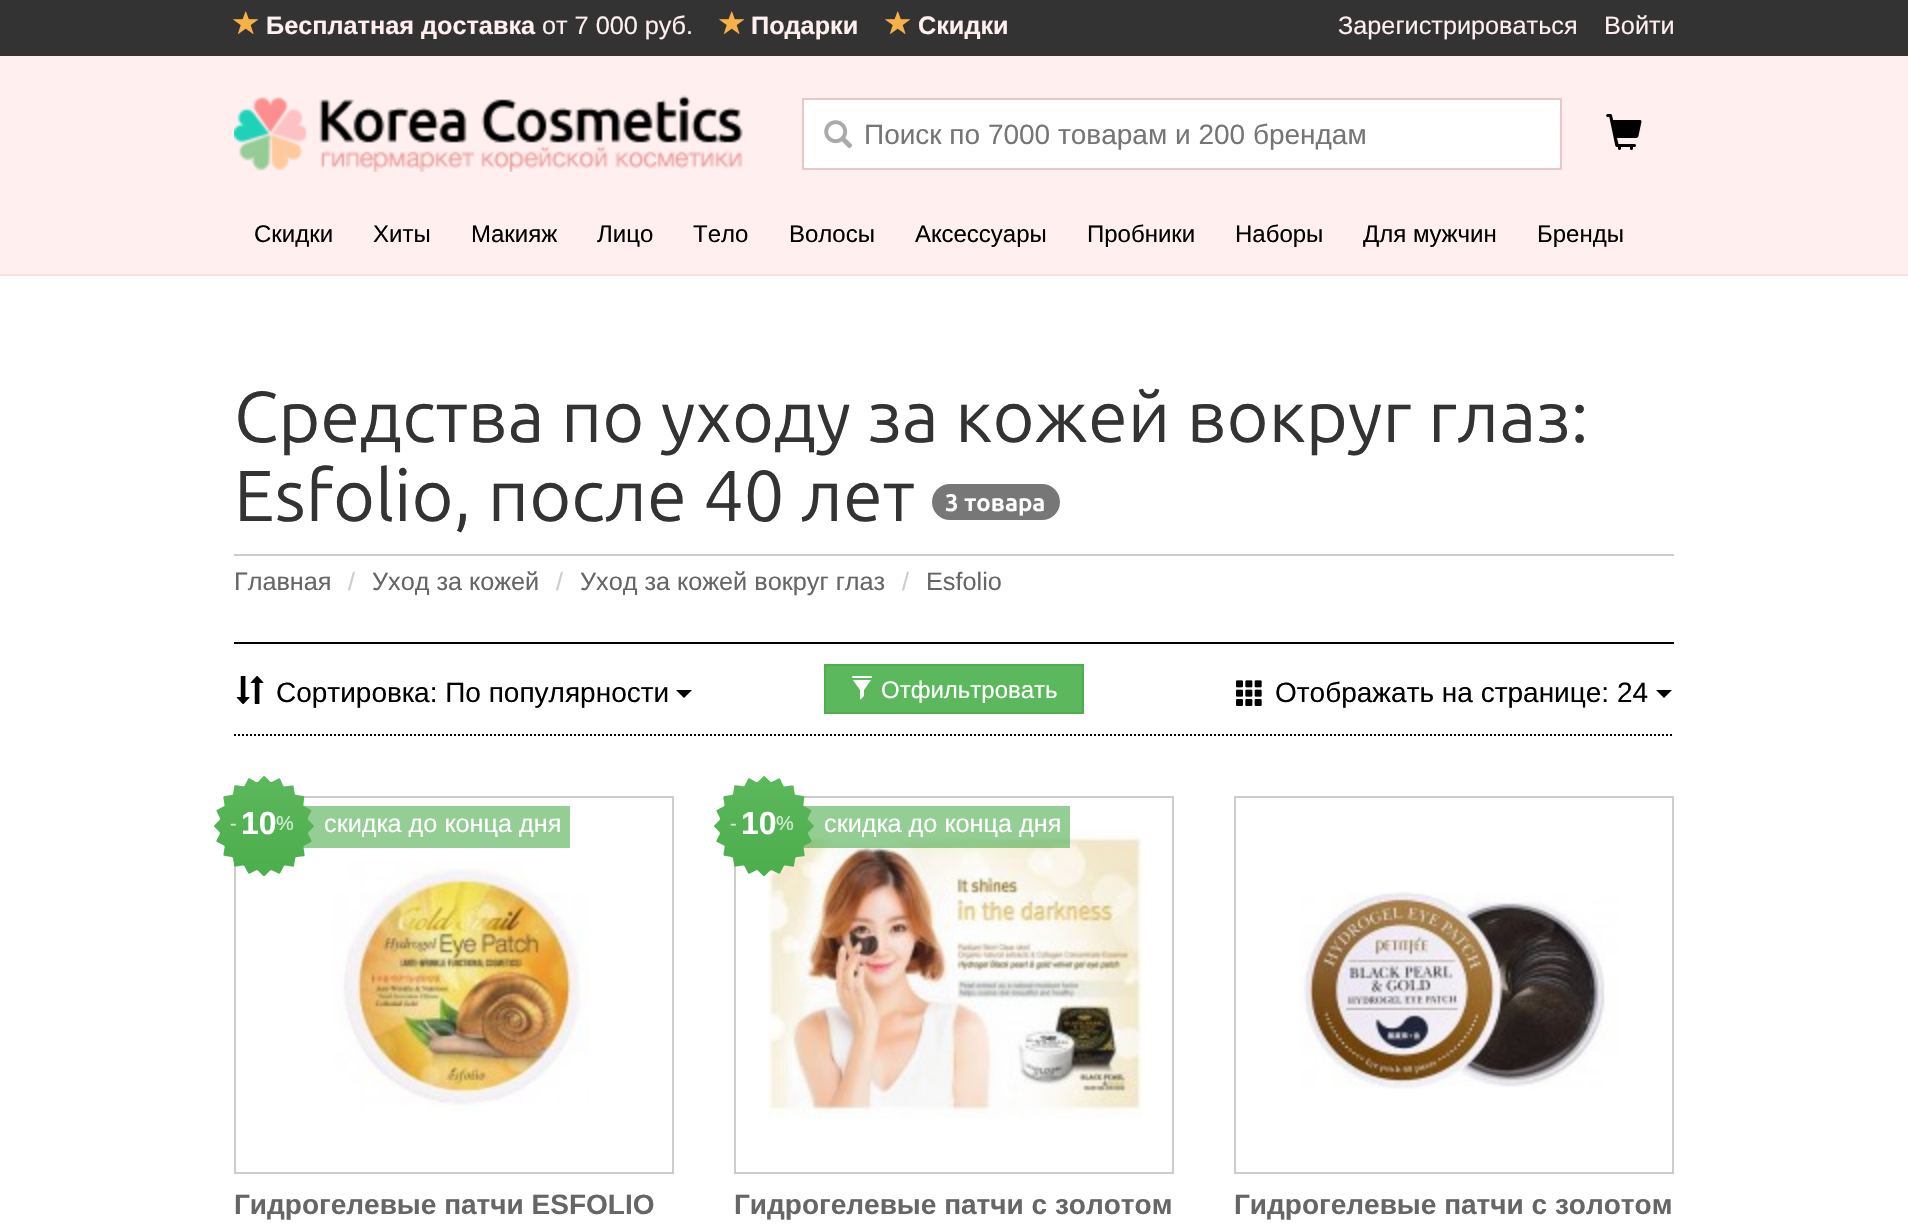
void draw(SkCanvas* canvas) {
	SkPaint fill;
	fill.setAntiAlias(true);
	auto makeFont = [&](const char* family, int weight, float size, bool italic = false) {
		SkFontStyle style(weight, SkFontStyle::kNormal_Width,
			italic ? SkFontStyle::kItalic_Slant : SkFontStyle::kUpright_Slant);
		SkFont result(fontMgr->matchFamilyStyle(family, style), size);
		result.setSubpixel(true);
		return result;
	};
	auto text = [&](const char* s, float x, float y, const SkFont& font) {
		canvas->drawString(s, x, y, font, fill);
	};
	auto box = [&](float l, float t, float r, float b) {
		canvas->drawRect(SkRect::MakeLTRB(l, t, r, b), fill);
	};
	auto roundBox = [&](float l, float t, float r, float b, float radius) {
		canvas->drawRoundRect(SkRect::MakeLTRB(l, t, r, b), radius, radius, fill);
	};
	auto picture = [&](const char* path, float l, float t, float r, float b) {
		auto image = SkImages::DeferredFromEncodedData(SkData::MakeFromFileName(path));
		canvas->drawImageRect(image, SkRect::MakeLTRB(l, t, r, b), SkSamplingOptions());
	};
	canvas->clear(0xFFFFFFFF);
	fill.setColor(0xFF333333);
	box(0, 0, 1908, 56);
	picture("image0.png", 233, 11, 259, 34);
	picture("image0.png", 719, 11, 745, 34);
	picture("image0.png", 885, 11, 911, 34);
	fill.setColor(0xFFFFEFEF);
	box(0, 56, 1908, 274);
	picture("image1.png", 234, 95, 743, 172);
	fill.setColor(0xFFFFFFFF);
	canvas->drawRect(SkRect::MakeLTRB(803, 99, 1561, 169), fill);
	fill.setStyle(SkPaint::kStroke_Style);
	fill.setStrokeWidth(2);
	fill.setColor(0xFFEAC7C7);
	canvas->drawRect(SkRect::MakeLTRB(803, 99, 1561, 169), fill);
	picture("image2.png", 824, 120, 853, 149);
	picture("image3.png", 1606, 114, 1642, 150);
	fill.setStyle(SkPaint::kFill_Style);
	fill.setColor(0xFFF6DFDF);
	box(0, 274, 1908, 276);
	fill.setColor(0xFF777777);
	roundBox(932, 484, 1060, 520, 18);
	fill.setColor(0xFFCCCCCC);
	box(234, 554, 1674, 556);
	fill.setColor(0xFF000000);
	box(234, 642, 1674, 644);
	fill.setStyle(SkPaint::kStroke_Style);
	fill.setPathEffect(SkDashPathEffect::Make({{2, 2}}, 0));
	canvas->drawPath(SkPathBuilder().moveTo(234, 735).lineTo(1674, 735).detach(), fill);
	fill.setPathEffect(nullptr);
	picture("image4.png", 236, 676, 264, 704);
	fill.setStyle(SkPaint::kFill_Style);
	canvas->drawPath(SkPathBuilder().moveTo(676, 690).lineTo(692, 690).lineTo(684, 698).close().detach(), fill);
	fill.setColor(0xFF5CB85C);
	canvas->drawRect(SkRect::MakeLTRB(825, 665, 1083, 713), fill);
	fill.setStyle(SkPaint::kStroke_Style);
	fill.setColor(0xFF4CAE4C);
	canvas->drawRect(SkRect::MakeLTRB(825, 665, 1083, 713), fill);
	picture("image5.png", 852, 676, 872, 700);
	picture("image6.png", 1236, 680, 1262, 706);
	fill.setStyle(SkPaint::kFill_Style);
	fill.setColor(0xFF000000);
	canvas->drawPath(SkPathBuilder().moveTo(1656, 690).lineTo(1672, 690).lineTo(1664, 698).close().detach(), fill);
	fill.setStyle(SkPaint::kStroke_Style);
	fill.setColor(0xFFCCCCCC);
	canvas->drawRect(SkRect::MakeLTRB(235, 797, 673, 1173), fill);
	picture("image7.png", 332, 861, 589, 1113);
	fill.setStyle(SkPaint::kFill_Style);
	fill.setColor(0xFF94CE94);
	box(303, 806, 570, 848);
	picture("image8.png", 214, 776, 314, 876);
	fill.setStyle(SkPaint::kStroke_Style);
	fill.setColor(0xFFCCCCCC);
	canvas->drawRect(SkRect::MakeLTRB(735, 797, 1173, 1173), fill);
	picture("image9.png", 768, 830, 1142, 1119);
	fill.setStyle(SkPaint::kFill_Style);
	fill.setColor(0x994CAE4C);
	box(803, 806, 1070, 848);
	picture("image10.png", 714, 776, 814, 876);
	fill.setStyle(SkPaint::kStroke_Style);
	fill.setColor(0xFFCCCCCC);
	canvas->drawRect(SkRect::MakeLTRB(1235, 797, 1673, 1173), fill);
	picture("image11.png", 1300, 891, 1619, 1089);
	auto font1 = makeFont("Liberation Sans", 700, 25.25f);
	fill.setStyle(SkPaint::kFill_Style);
	fill.setColor(0xFFFFEFEF);
	text("Бесплатная доставка", 266, 34, font1);
	auto font2 = makeFont("Liberation Sans", 400, 25.25f);
	text("от 7 000 руб.", 542, 34, font2);
	text("Подарки", 751, 34, font1);
	text("Скидки", 918, 34, font1);
	text("Зарегистрироваться", 1338, 34, font2);
	text("Войти", 1604, 34, font2);
	auto font3 = makeFont("Liberation Sans", 400, 28);
	fill.setColor(0xFF757575);
	text("Поиск по 7000 товарам и 200 брендам", 864, 144, font3);
	auto font4 = makeFont("Liberation Sans", 400, 24);
	fill.setColor(0xFF000000);
	text("Скидки", 254, 242, font4);
	text("Хиты", 373, 242, font4);
	text("Макияж", 471, 242, font4);
	text("Лицо", 597, 242, font4);
	text("Тело", 693, 242, font4);
	text("Волосы", 789, 242, font4);
	text("Аксессуары", 915, 242, font4);
	text("Пробники", 1087, 242, font4);
	text("Наборы", 1235, 242, font4);
	text("Для мужчин", 1363, 242, font4);
	text("Бренды", 1537, 242, font4);
	auto font5 = makeFont("Ubuntu", 400, 72);
	fill.setColor(0xFF333333);
	text("Средства по уходу за кожей вокруг глаз:", 234, 442, font5);
	text("Esfolio, после 40 лет", 234, 521, font5);
	auto font6 = makeFont("Ubuntu", 700, 24);
	fill.setColor(0xFFFFFFFF);
	text("3 товара", 945, 511, font6);
	fill.setColor(0xFF666666);
	text("Главная", 234, 590, font2);
	fill.setColor(0xFFCCCCCC);
	text("/", 348, 590, font2);
	fill.setColor(0xFF666666);
	text("Уход за кожей", 372, 590, font2);
	fill.setColor(0xFFCCCCCC);
	text("/", 556, 590, font2);
	fill.setColor(0xFF666666);
	text("Уход за кожей вокруг глаз", 580, 590, font2);
	fill.setColor(0xFFCCCCCC);
	text("/", 902, 590, font2);
	fill.setColor(0xFF666666);
	text("Esfolio", 926, 590, font2);
	fill.setColor(0xFF000000);
	text("Сортировка: По популярности", 276, 702, font3);
	fill.setColor(0xFFFFFFFF);
	text("Отфильтровать", 881, 698, font4);
	fill.setColor(0xFF000000);
	text("Отображать на странице: 24", 1275, 702, font3);
	auto font7 = makeFont("Liberation Sans", 400, 20);
	fill.setColor(0xFFD4ECD4);
	text("-", 230, 830, font7);
	auto font8 = makeFont("Liberation Sans", 700, 32);
	fill.setColor(0xFFFFFFFF);
	text("10", 241, 834, font8);
	fill.setColor(0xFFD4ECD4);
	text("%", 276, 830, font7);
	fill.setColor(0xFFFFFFFF);
	text("скидка до конца дня", 324, 832, font2);
	auto font9 = makeFont("Liberation Sans", 700, 28);
	fill.setColor(0xFF666666);
	text("Гидрогелевые патчи ESFOLIO", 234, 1214, font9);
	fill.setColor(0xFFD4ECD4);
	text("-", 730, 830, font7);
	fill.setColor(0xFFFFFFFF);
	text("10", 741, 834, font8);
	fill.setColor(0xFFD4ECD4);
	text("%", 776, 830, font7);
	fill.setColor(0xFFFFFFFF);
	text("скидка до конца дня", 824, 832, font2);
	fill.setColor(0xFF666666);
	text("Гидрогелевые патчи с золотом", 734, 1214, font9);
	text("Гидрогелевые патчи с золотом", 1234, 1214, font9);
}
